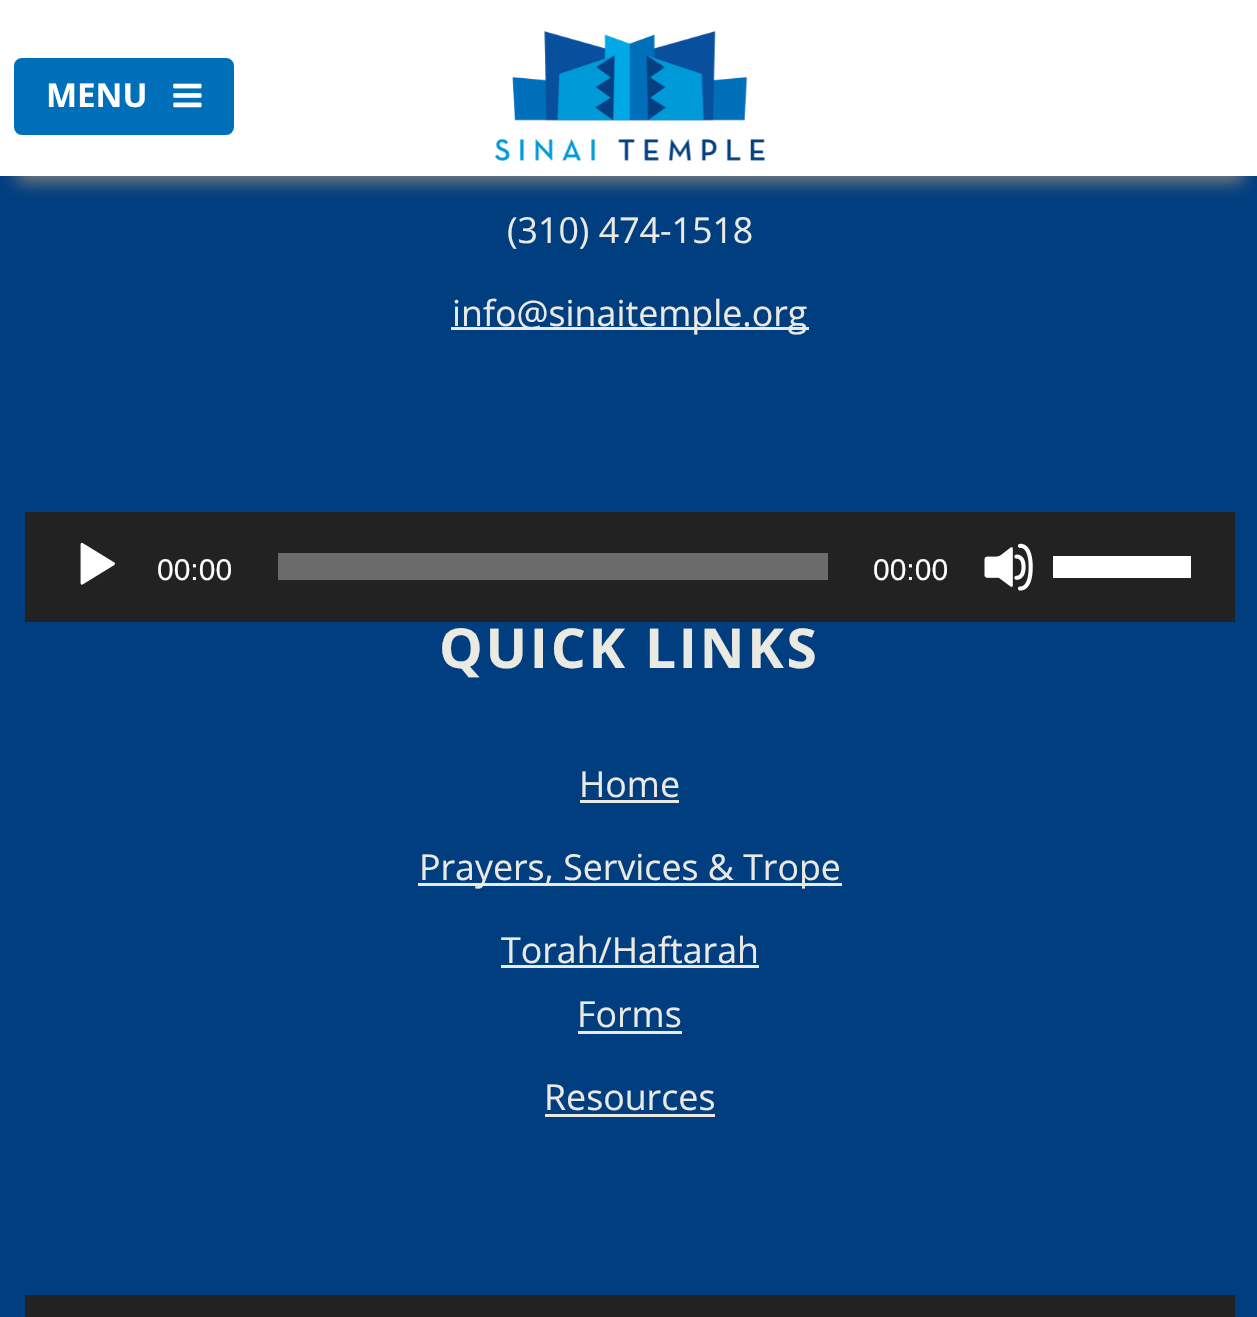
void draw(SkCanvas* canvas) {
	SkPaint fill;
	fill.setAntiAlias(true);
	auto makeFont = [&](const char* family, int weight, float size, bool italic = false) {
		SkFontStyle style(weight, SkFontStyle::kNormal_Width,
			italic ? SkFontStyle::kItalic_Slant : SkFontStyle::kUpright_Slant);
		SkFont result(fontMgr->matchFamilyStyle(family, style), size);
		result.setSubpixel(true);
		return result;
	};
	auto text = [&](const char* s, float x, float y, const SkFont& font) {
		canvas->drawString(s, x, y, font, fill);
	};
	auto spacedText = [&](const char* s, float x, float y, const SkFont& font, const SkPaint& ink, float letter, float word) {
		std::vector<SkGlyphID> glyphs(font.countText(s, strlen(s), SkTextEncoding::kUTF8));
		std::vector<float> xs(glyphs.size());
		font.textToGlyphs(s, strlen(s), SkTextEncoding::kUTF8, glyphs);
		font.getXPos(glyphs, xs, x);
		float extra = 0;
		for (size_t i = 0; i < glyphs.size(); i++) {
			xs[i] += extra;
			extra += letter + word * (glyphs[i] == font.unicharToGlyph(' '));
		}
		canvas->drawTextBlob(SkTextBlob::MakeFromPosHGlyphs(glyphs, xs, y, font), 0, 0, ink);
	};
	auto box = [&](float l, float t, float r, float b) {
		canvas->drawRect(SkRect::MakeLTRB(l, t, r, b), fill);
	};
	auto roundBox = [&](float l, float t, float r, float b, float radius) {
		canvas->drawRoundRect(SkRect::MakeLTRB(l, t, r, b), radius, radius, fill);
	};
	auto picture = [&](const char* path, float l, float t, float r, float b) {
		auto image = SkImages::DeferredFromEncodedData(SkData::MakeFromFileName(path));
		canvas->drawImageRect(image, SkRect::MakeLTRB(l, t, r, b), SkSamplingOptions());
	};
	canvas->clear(0xFF003E80);
	fill.setColor(0xFF7C7C7C);
	fill.setMaskFilter(SkMaskFilter::MakeBlur(kNormal_SkBlurStyle, 8));
	canvas->drawRect(SkRect::MakeLTRB(17, 39, 1243, 182), fill);
	fill.setMaskFilter(nullptr);
	fill.setColor(0xFFFFFFFF);
	box(0, 0, 1257, 176);
	fill.setColor(0xFF006FB9);
	roundBox(14, 58, 234, 135, 8);
	picture("image0.png", 173, 83, 202, 108);
	picture("image1.png", 495, 31, 765, 161);
	fill.setColor(0xFFEBEAE2);
	box(451, 327, 809, 330);
	fill.setColor(0xFF222222);
	box(25, 512, 1235, 622);
	picture("image2.png", 80, 542, 115, 585);
	fill.setColor(0xFF6B6B6B);
	box(278, 553, 828, 580);
	picture("image3.png", 984, 543, 1033, 591);
	fill.setColor(0xFFFFFFFF);
	box(1053, 556, 1191, 578);
	fill.setColor(0xFFEBEAE2);
	box(580, 800, 679, 803);
	box(418, 883, 842, 886);
	box(501, 965, 759, 968);
	box(578, 1031, 682, 1034);
	box(545, 1114, 715, 1117);
	fill.setColor(0xFF222222);
	box(25, 1295, 1235, 1317);
	auto font1 = makeFont("Open Sans", 700, 33);
	fill.setColor(0xFFFFFFFF);
	text("MENU", 46, 107, font1);
	auto font2 = makeFont("Open Sans", 400, 35.75f);
	fill.setColor(0xFFEBEAE2);
	text("(310) 474-1518", 507, 243, font2);
	text("info@sinaitemple.org", 452, 326, font2);
	auto font3 = makeFont("Liberation Sans", 400, 30);
	fill.setColor(0xFFFFFFFF);
	text("00:00", 157, 580, font3);
	text("00:00", 873, 580, font3);
	auto font4 = makeFont("Open Sans", 700, 55);
	fill.setColor(0xFFEBEAE2);
	spacedText("QUICK LINKS", 439, 668, font4, fill, 2.75f, 0);
	text("Home", 579, 797, font2);
	text("Prayers, Services & Trope", 419, 880, font2);
	text("Torah/Haftarah", 501, 963, font2);
	text("Forms", 577, 1027, font2);
	text("Resources", 544, 1110, font2);
}
